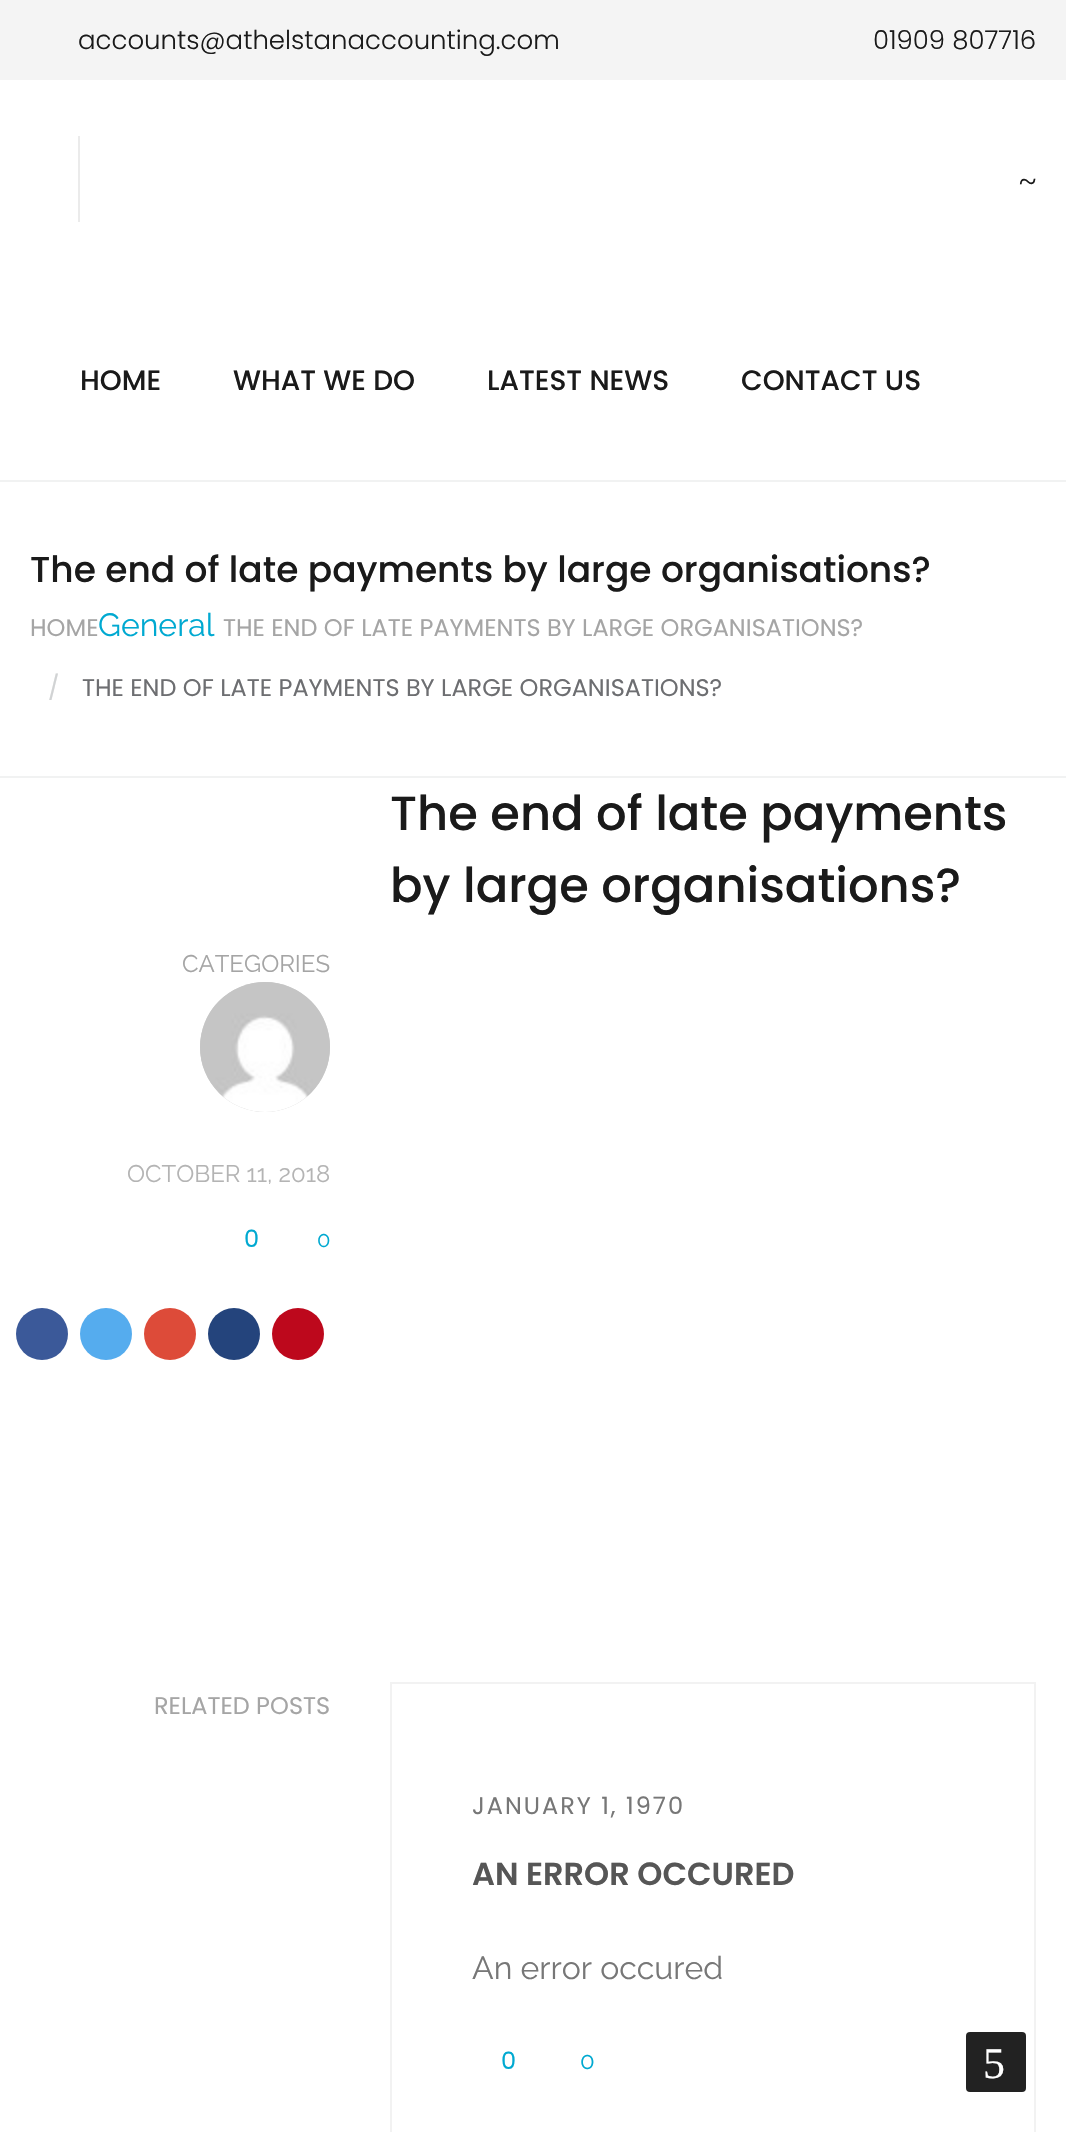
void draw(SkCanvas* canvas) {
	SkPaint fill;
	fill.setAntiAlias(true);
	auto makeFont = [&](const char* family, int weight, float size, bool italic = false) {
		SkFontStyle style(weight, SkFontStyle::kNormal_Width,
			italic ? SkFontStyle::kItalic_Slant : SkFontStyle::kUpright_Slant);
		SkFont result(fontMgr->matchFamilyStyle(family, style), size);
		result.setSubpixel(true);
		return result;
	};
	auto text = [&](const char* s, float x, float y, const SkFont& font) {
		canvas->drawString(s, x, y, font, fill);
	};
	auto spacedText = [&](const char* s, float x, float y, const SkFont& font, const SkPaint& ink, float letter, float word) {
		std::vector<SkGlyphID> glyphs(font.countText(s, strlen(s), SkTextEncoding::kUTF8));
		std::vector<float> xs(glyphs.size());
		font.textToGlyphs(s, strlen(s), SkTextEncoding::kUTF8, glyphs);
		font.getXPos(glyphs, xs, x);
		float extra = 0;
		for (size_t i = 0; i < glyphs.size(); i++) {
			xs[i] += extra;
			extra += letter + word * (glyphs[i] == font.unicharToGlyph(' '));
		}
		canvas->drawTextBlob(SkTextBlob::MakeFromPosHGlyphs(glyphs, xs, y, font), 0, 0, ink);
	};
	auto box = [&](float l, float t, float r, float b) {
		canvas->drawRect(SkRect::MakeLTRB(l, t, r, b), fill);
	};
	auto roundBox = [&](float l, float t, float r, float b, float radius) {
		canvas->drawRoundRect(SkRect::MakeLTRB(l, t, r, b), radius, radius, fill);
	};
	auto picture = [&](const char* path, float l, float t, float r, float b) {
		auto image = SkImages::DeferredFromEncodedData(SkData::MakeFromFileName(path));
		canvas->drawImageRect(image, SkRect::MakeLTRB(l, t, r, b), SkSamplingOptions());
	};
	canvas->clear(0xFFFFFFFF);
	fill.setColor(0xFFF4F4F4);
	box(0, 0, 1066, 80);
	fill.setColor(0xFFF1F2F2);
	box(0, 480, 1066, 482);
	fill.setColor(0xFFEBEBEB);
	box(78, 136, 80, 222);
	fill.setColor(0xFFF1F2F2);
	box(0, 776, 1066, 778);
	fill.setColor(0xFFCCCCCC);
	canvas->drawCircle(265, 1047, 65, fill);
	picture("image0.png", 200, 982, 330, 1112);
	fill.setColor(0xFF3B5999);
	canvas->drawCircle(42, 1334, 26, fill);
	fill.setColor(0xFF55ACEE);
	canvas->drawCircle(106, 1334, 26, fill);
	fill.setColor(0xFFDD4B39);
	canvas->drawCircle(170, 1334, 26, fill);
	fill.setColor(0xFF24447C);
	canvas->drawCircle(234, 1334, 26, fill);
	fill.setColor(0xFFBD081C);
	canvas->drawCircle(298, 1334, 26, fill);
	fill.setStyle(SkPaint::kStroke_Style);
	fill.setStrokeWidth(2);
	fill.setColor(0xFFF2F2F2);
	canvas->drawRect(SkRect::MakeLTRB(391, 1683, 1035, 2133), fill);
	fill.setStyle(SkPaint::kFill_Style);
	fill.setColor(0xFF222222);
	roundBox(966, 2032, 1026, 2092, 4);
	auto font1 = makeFont("Poppins", 300, 26);
	fill.setColor(0xFF1A1A1A);
	text("accounts@athelstanaccounting.com", 78, 49, font1);
	text("01909 807716", 873, 49, font1);
	auto font2 = makeFont("Liberation Serif", 400, 32);
	text("~", 1019, 192, font2);
	auto font3 = makeFont("Poppins", 500, 28);
	text("HOME", 80, 390, font3);
	text("WHAT WE DO", 233, 390, font3);
	text("LATEST NEWS", 487, 390, font3);
	text("CONTACT US", 741, 390, font3);
	auto font4 = makeFont("Poppins", 500, 36);
	text("The end of late payments by large organisations?", 30, 582, font4);
	auto font5 = makeFont("Poppins", 400, 24);
	fill.setColor(0xFFA5A5A5);
	text("HOME", 30, 636, font5);
	auto font6 = makeFont("Raleway", 400, 32);
	fill.setColor(0xFF00A9D1);
	text("General", 98, 636, font6);
	fill.setColor(0xFFA5A5A5);
	text("THE END OF LATE PAYMENTS BY LARGE ORGANISATIONS?", 223, 636, font5);
	fill.setColor(0xFFD1D3D4);
	text("/", 48, 696, font5);
	fill.setColor(0xFF6D6E71);
	text("THE END OF LATE PAYMENTS BY LARGE ORGANISATIONS?", 82, 696, font5);
	auto font7 = makeFont("Poppins", 500, 48);
	fill.setColor(0xFF1A1A1A);
	text("The end of late payments", 390, 830, font7);
	text("by large organisations?", 390, 902, font7);
	auto font8 = makeFont("Raleway", 400, 24);
	fill.setColor(0xFFA5A5A5);
	text("CATEGORIES", 182, 972, font8);
	fill.setColor(0xFFB4B4B4);
	text("OCTOBER 11, 2018", 127, 1182, font8);
	fill.setColor(0xFF00A9D1);
	text("0", 244, 1247, font5);
	auto font9 = makeFont("Raleway", 400, 22);
	text("0", 317, 1247, font9);
	fill.setColor(0xFFA5A5A5);
	text("RELATED POSTS", 154, 1714, font5);
	fill.setColor(0xFF777777);
	spacedText("JANUARY 1, 1970", 472, 1814, font5, fill, 2, 0);
	auto font10 = makeFont("Poppins", 600, 32);
	fill.setColor(0xFF565656);
	text("AN ERROR OCCURED", 472, 1885, font10);
	fill.setColor(0xFF777777);
	text("An error occured", 472, 1979, font6);
	fill.setColor(0xFF00A9D1);
	text("0", 501, 2069, font5);
	text("0", 580, 2069, font8);
	auto font11 = makeFont("Liberation Serif", 400, 44);
	fill.setColor(0xFFFFFFFF);
	text("5", 983, 2078, font11);
}
